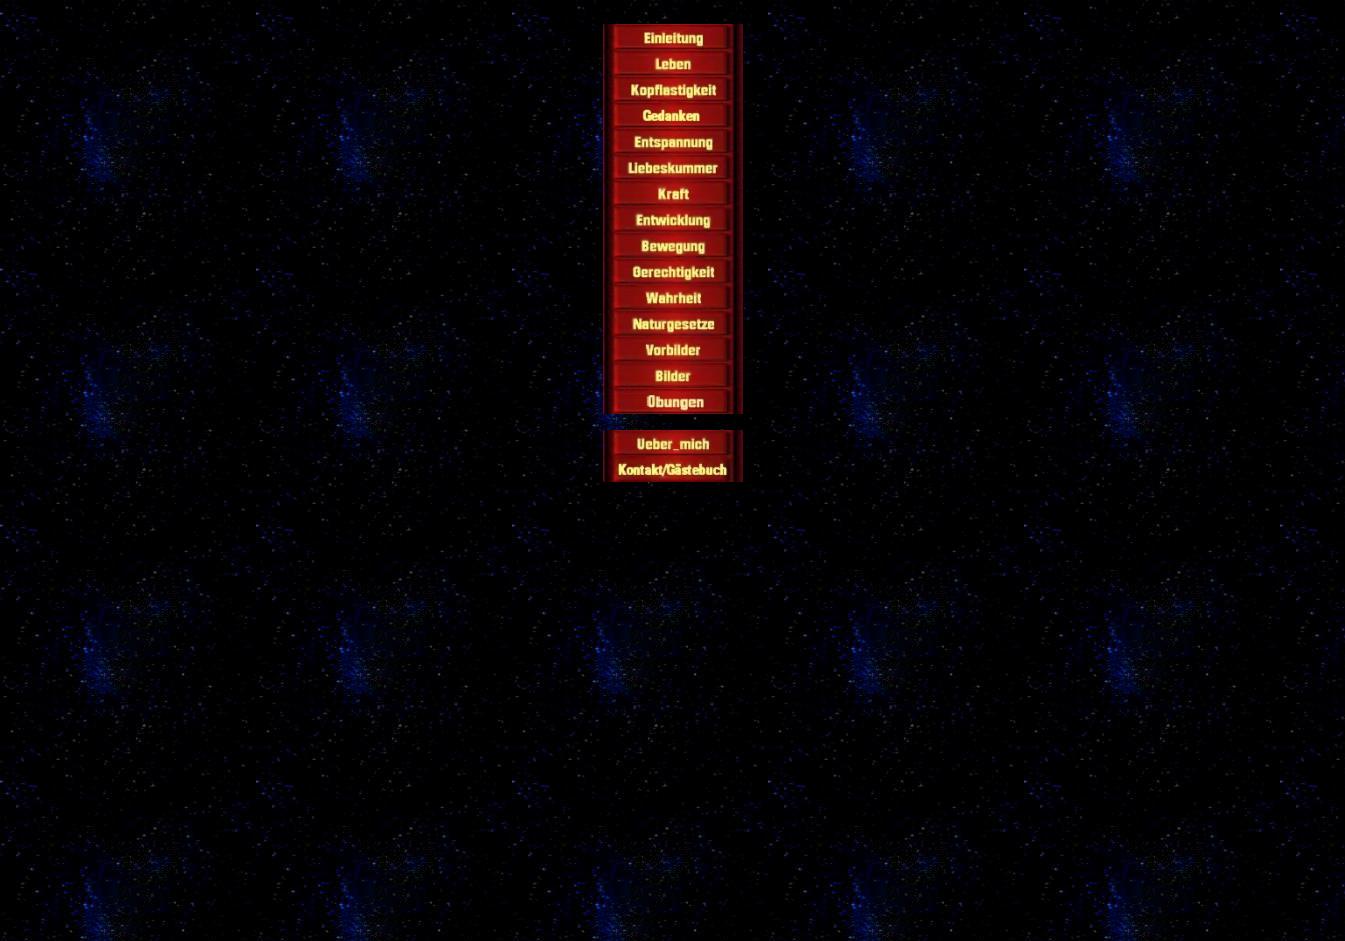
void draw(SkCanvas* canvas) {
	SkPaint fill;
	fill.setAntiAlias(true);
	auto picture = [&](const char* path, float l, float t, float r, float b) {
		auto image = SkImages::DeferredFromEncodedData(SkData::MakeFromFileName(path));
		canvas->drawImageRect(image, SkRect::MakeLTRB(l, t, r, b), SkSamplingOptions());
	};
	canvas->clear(0xFFFFFFFF);
	picture("image0.png", 0, 0, 1345, 941);
	picture("image1.png", 603, 24, 743, 50);
	picture("image2.png", 603, 50, 743, 76);
	picture("image3.png", 603, 76, 743, 102);
	picture("image4.png", 603, 102, 743, 128);
	picture("image5.png", 603, 128, 743, 154);
	picture("image6.png", 603, 154, 743, 180);
	picture("image7.png", 603, 180, 743, 206);
	picture("image8.png", 603, 206, 743, 232);
	picture("image9.png", 603, 232, 743, 258);
	picture("image10.png", 603, 258, 743, 284);
	picture("image11.png", 603, 284, 743, 310);
	picture("image12.png", 603, 310, 743, 336);
	picture("image13.png", 603, 336, 743, 362);
	picture("image14.png", 603, 362, 743, 388);
	picture("image15.png", 603, 388, 743, 414);
	picture("image16.png", 603, 430, 743, 456);
	picture("image17.png", 603, 456, 743, 482);
}
